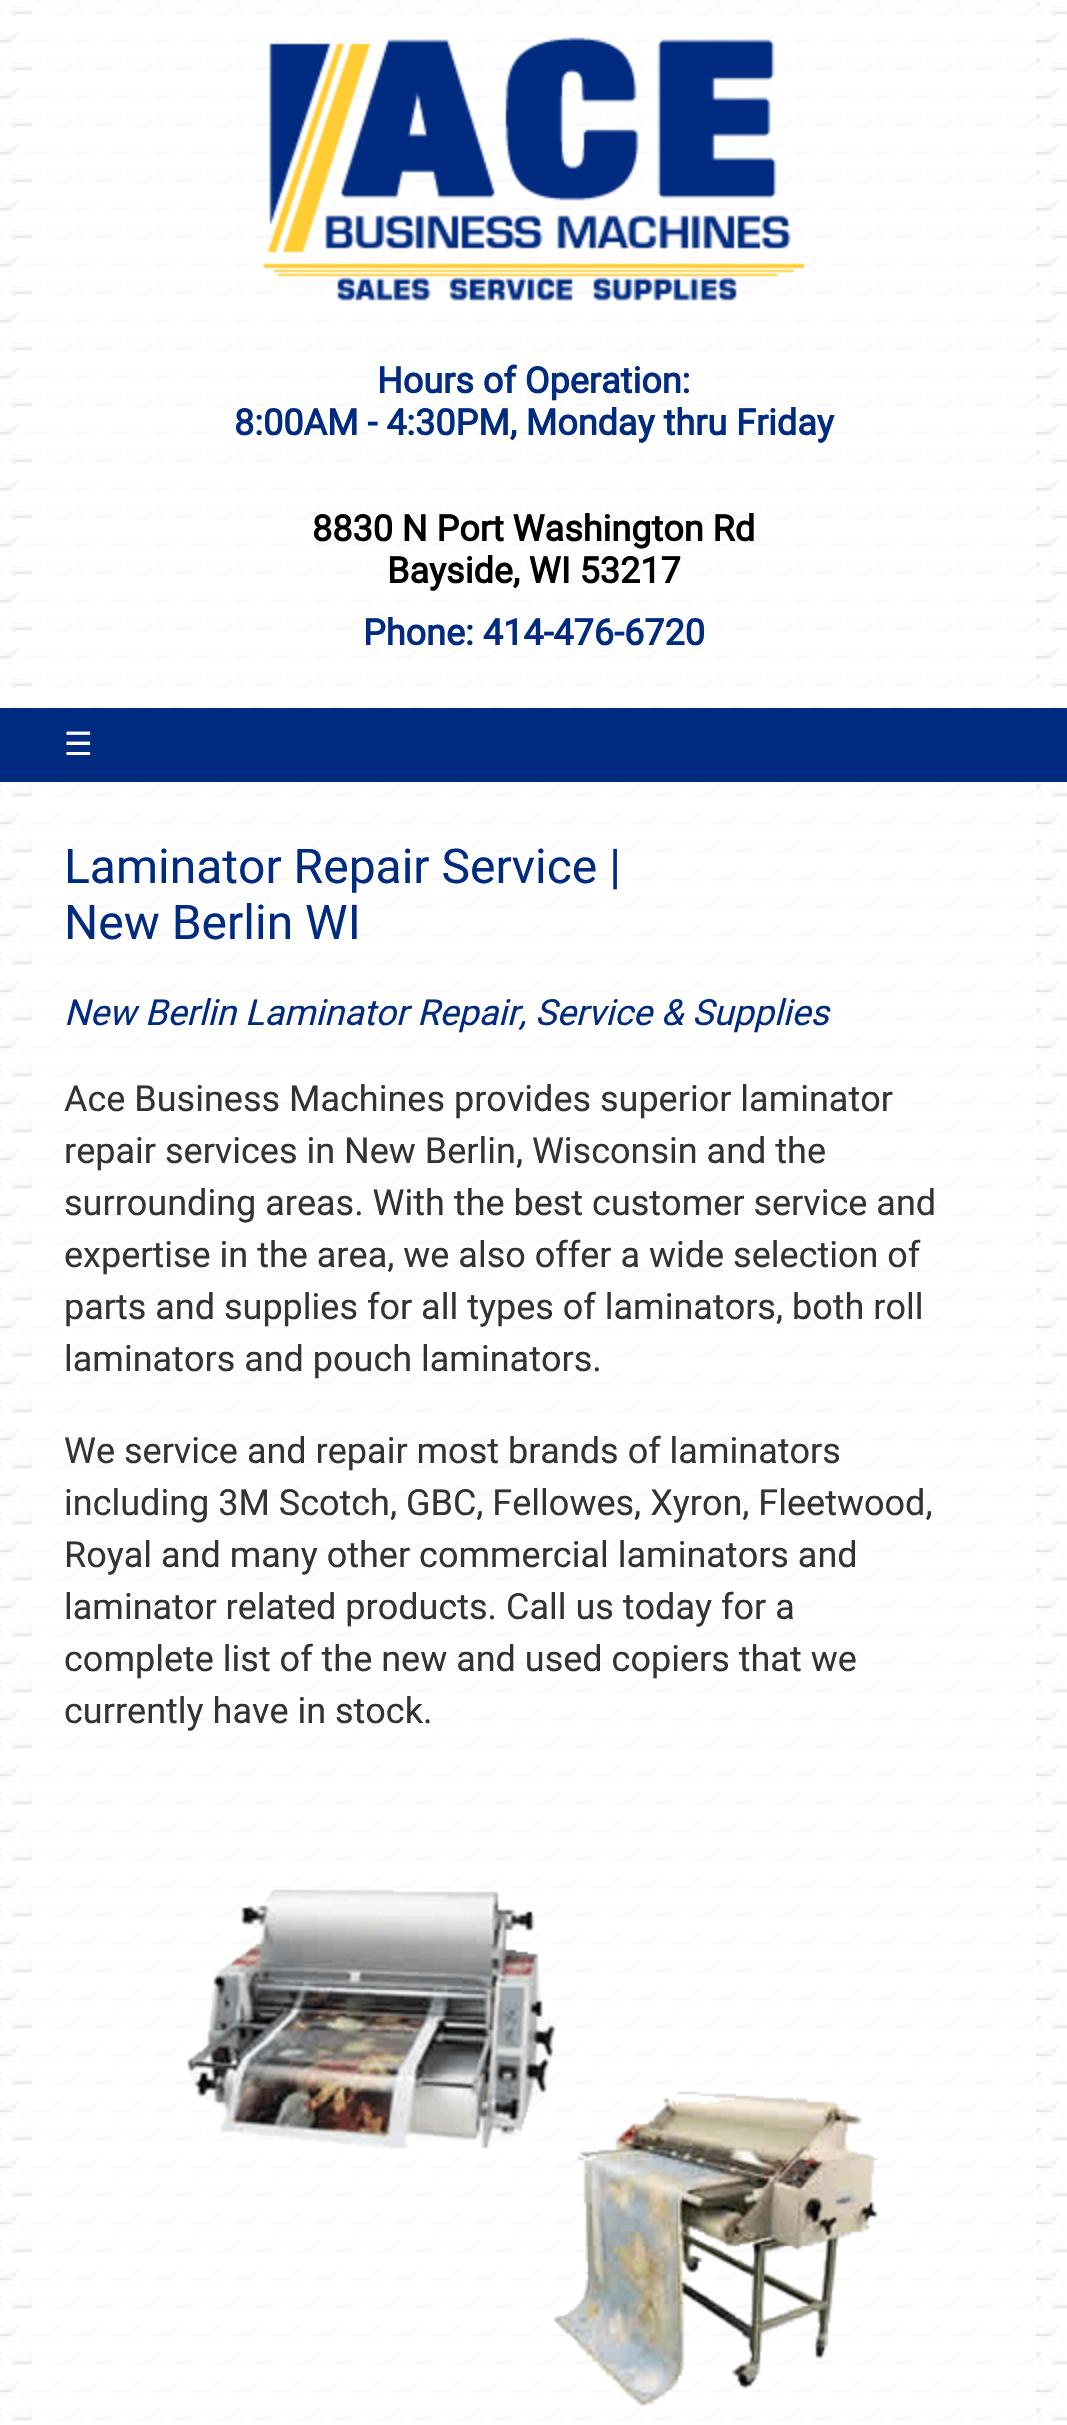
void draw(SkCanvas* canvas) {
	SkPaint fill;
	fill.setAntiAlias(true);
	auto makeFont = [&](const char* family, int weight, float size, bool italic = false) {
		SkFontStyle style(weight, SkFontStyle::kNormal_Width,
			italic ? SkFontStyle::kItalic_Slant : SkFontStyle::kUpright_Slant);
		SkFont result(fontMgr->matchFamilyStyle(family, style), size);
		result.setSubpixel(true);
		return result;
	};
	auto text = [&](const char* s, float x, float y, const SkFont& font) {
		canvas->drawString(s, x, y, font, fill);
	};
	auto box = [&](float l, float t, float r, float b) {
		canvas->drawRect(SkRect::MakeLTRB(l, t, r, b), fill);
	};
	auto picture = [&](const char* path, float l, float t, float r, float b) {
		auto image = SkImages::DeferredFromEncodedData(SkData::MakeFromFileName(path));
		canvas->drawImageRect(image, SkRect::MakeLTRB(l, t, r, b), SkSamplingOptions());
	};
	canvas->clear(0xFFFFFFFF);
	picture("image0.png", 0, 0, 1067, 708);
	picture("image1.png", 263, 37, 805, 301);
	fill.setColor(0xFF002B81);
	box(0, 708, 1067, 782);
	picture("image2.png", 0, 782, 1067, 2425);
	picture("image3.png", 187, 1889, 879, 2407);
	auto font1 = makeFont("Roboto", 700, 36);
	text("Hours of Operation:", 377, 393, font1);
	text("8:00AM - 4:30PM, Monday thru Friday", 234, 435, font1);
	fill.setColor(0xFF000000);
	text("8830 N Port Washington Rd", 312, 541, font1);
	text("Bayside, WI 53217", 387, 583, font1);
	fill.setColor(0xFF002B81);
	text("Phone: 414-476-6720", 363, 645, font1);
	auto font2 = makeFont("DejaVu Sans", 400, 32);
	fill.setColor(0xFFFFFFFF);
	text("☰", 64, 755, font2);
	auto font3 = makeFont("Roboto", 400, 48);
	fill.setColor(0xFF002B81);
	text("Laminator Repair Service |", 64, 883, font3);
	text("New Berlin WI", 64, 939, font3);
	auto font4 = makeFont("Roboto", 400, 36, true);
	text("New Berlin Laminator Repair, Service & Supplies", 64, 1025, font4);
	auto font5 = makeFont("Roboto", 400, 36);
	fill.setColor(0xFF333333);
	text("Ace Business Machines provides superior laminator", 64, 1111, font5);
	text("repair services in New Berlin, Wisconsin and the", 64, 1163, font5);
	text("surrounding areas. With the best customer service and", 64, 1215, font5);
	text("expertise in the area, we also offer a wide selection of", 64, 1267, font5);
	text("parts and supplies for all types of laminators, both roll", 64, 1319, font5);
	text("laminators and pouch laminators.", 64, 1371, font5);
	text("We service and repair most brands of laminators", 64, 1463, font5);
	text("including 3M Scotch, GBC, Fellowes, Xyron, Fleetwood,", 64, 1515, font5);
	text("Royal and many other commercial laminators and", 64, 1567, font5);
	text("laminator related products. Call us today for a", 64, 1619, font5);
	text("complete list of the new and used copiers that we", 64, 1671, font5);
	text("currently have in stock.", 64, 1723, font5);
}
